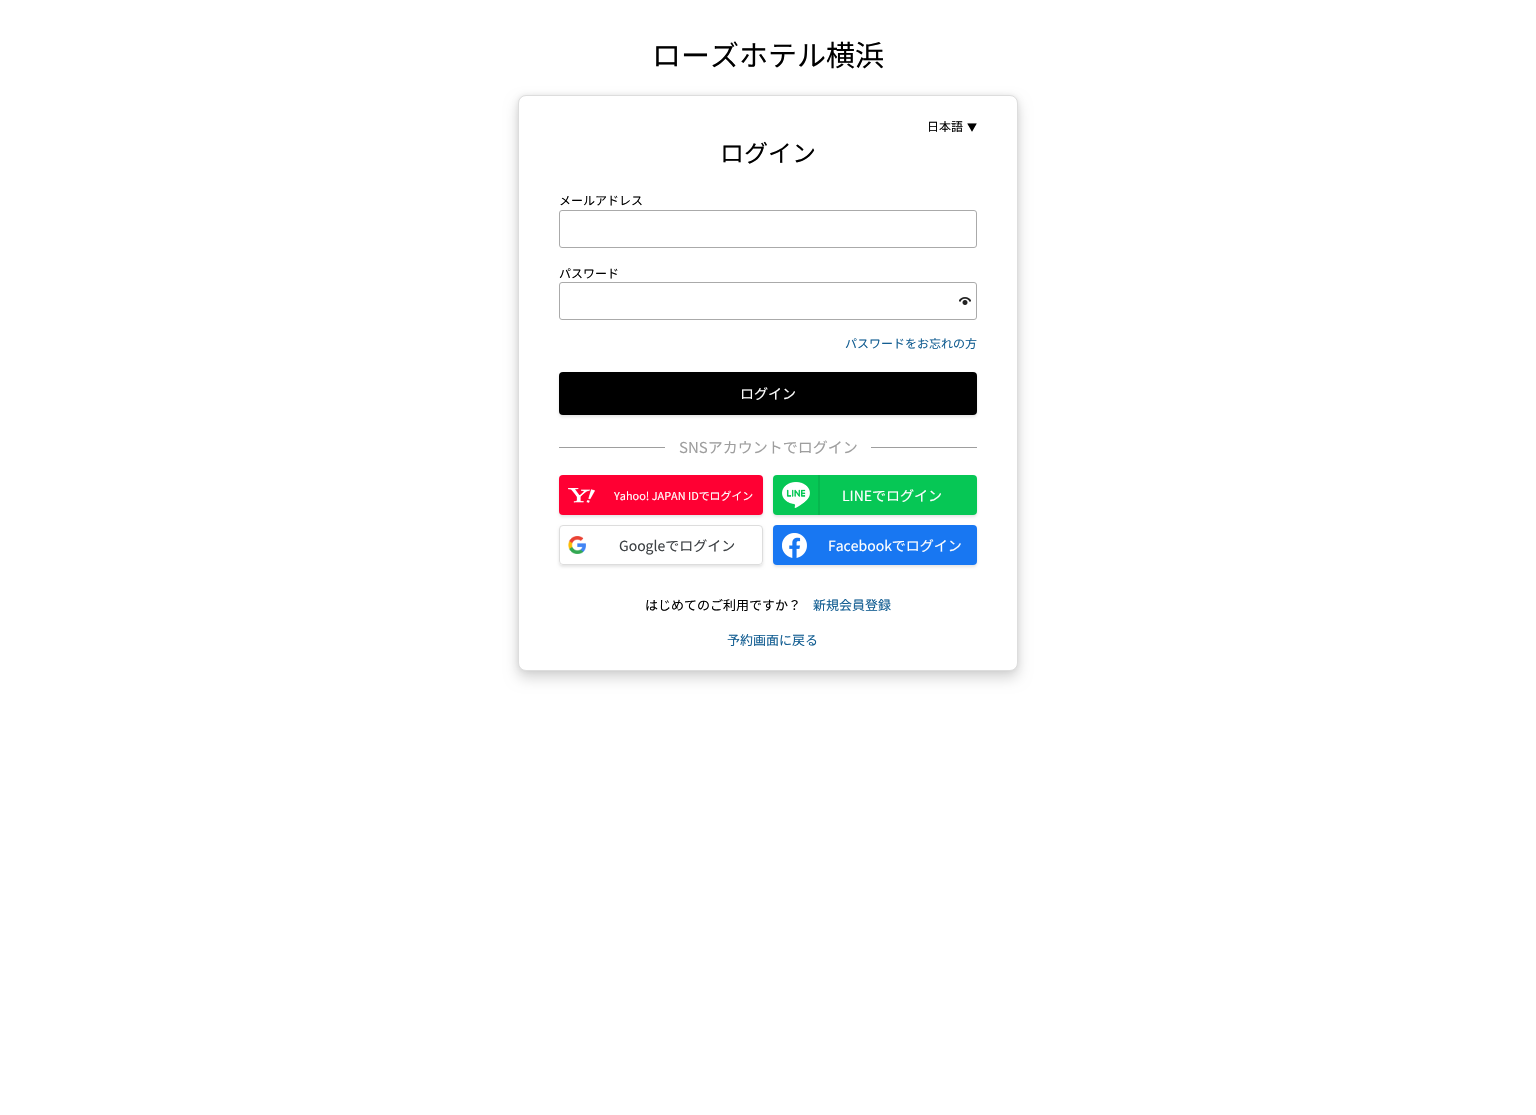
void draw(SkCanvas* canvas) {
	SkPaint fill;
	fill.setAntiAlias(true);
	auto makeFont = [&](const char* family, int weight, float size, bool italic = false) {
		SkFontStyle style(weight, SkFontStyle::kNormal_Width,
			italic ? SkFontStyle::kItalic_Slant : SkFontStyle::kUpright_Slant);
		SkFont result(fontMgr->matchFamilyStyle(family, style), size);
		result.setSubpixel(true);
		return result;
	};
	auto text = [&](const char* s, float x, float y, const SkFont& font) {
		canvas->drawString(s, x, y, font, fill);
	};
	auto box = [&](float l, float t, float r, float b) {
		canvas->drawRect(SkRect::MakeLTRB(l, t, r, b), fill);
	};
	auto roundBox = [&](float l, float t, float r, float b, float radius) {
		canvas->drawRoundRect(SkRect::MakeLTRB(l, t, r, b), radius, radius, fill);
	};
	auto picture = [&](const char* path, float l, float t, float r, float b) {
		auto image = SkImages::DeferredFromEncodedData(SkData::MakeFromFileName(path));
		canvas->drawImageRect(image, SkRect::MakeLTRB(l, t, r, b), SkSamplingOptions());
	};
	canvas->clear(0xFFFFFFFF);
	fill.setColor(0x14030303);
	fill.setMaskFilter(SkMaskFilter::MakeBlur(kNormal_SkBlurStyle, 2.5f));
	canvas->drawRoundRect(SkRect::MakeLTRB(518, 95, 1018, 671), 8, 8, fill);
	fill.setMaskFilter(nullptr);
	fill.setColor(0x29030303);
	fill.setMaskFilter(SkMaskFilter::MakeBlur(kNormal_SkBlurStyle, 7));
	canvas->drawRoundRect(SkRect::MakeLTRB(518, 102, 1018, 678), 8, 8, fill);
	fill.setMaskFilter(nullptr);
	fill.setColor(0xFFFFFFFF);
	canvas->drawRoundRect(SkRect::MakeLTRB(518.5f, 95.5f, 1017.5f, 670.5f), 7.5f, 7.5f, fill);
	fill.setStyle(SkPaint::kStroke_Style);
	fill.setStrokeWidth(1);
	fill.setColor(0xFFDDDDDD);
	canvas->drawRoundRect(SkRect::MakeLTRB(518.5f, 95.5f, 1017.5f, 670.5f), 7.5f, 7.5f, fill);
	fill.setColor(0xFFAAAAAA);
	canvas->drawRoundRect(SkRect::MakeLTRB(559.5f, 210.5f, 976.5f, 247.5f), 2.5f, 2.5f, fill);
	canvas->drawRoundRect(SkRect::MakeLTRB(559.5f, 282.5f, 976.5f, 319.5f), 2.5f, 2.5f, fill);
	picture("image0.png", 959, 297, 971, 305);
	fill.setStyle(SkPaint::kFill_Style);
	fill.setColor(0x1A000000);
	fill.setMaskFilter(SkMaskFilter::MakeBlur(kNormal_SkBlurStyle, 1.5f));
	canvas->drawRoundRect(SkRect::MakeLTRB(559, 374, 977, 417), 4, 4, fill);
	fill.setMaskFilter(nullptr);
	fill.setColor(0xFF000000);
	roundBox(559, 372, 977, 415, 4);
	fill.setColor(0xFF9E9E9E);
	box(559, 447, 665, 448);
	box(871, 447, 977, 448);
	fill.setColor(0x1A000000);
	fill.setMaskFilter(SkMaskFilter::MakeBlur(kNormal_SkBlurStyle, 1.5f));
	canvas->drawRoundRect(SkRect::MakeLTRB(559, 477, 763, 517), 4, 4, fill);
	fill.setMaskFilter(nullptr);
	fill.setColor(0xFFFF0033);
	roundBox(559, 475, 763, 515, 4);
	picture("image1.png", 568, 488, 595, 503);
	fill.setColor(0x1A000000);
	fill.setMaskFilter(SkMaskFilter::MakeBlur(kNormal_SkBlurStyle, 1.5f));
	canvas->drawRoundRect(SkRect::MakeLTRB(773, 477, 977, 517), 4, 4, fill);
	fill.setMaskFilter(nullptr);
	fill.setColor(0xFF06C755);
	roundBox(773, 475, 977, 515, 4);
	picture("image2.png", 782, 482, 810, 508);
	fill.setColor(0xFF06B74E);
	box(818, 475, 820, 515);
	fill.setColor(0x1A000000);
	fill.setMaskFilter(SkMaskFilter::MakeBlur(kNormal_SkBlurStyle, 1.5f));
	canvas->drawRoundRect(SkRect::MakeLTRB(559, 527, 763, 567), 4, 4, fill);
	fill.setMaskFilter(nullptr);
	fill.setColor(0xFFFFFFFF);
	roundBox(559, 525, 763, 565, 4);
	picture("image3.png", 568, 536, 586, 554);
	fill.setStyle(SkPaint::kStroke_Style);
	fill.setColor(0xFFDDDDDD);
	canvas->drawRoundRect(SkRect::MakeLTRB(559.5f, 525.5f, 762.5f, 564.5f), 3.5f, 3.5f, fill);
	fill.setStyle(SkPaint::kFill_Style);
	fill.setColor(0x1A000000);
	fill.setMaskFilter(SkMaskFilter::MakeBlur(kNormal_SkBlurStyle, 1.5f));
	canvas->drawRoundRect(SkRect::MakeLTRB(773, 527, 977, 567), 4, 4, fill);
	fill.setMaskFilter(nullptr);
	fill.setColor(0xFF1877F2);
	roundBox(773, 525, 977, 565, 4);
	picture("image4.png", 782, 533, 807, 558);
	auto font1 = makeFont("Noto Sans JP", 100, 29);
	fill.setColor(0xFF000000);
	text("ローズホテル横浜", 652, 66, font1);
	auto font2 = makeFont("Noto Sans JP", 100, 12);
	text("日本語", 927, 131, font2);
	auto font3 = makeFont("Noto Sans JP", 100, 10);
	text("▼", 967, 131, font3);
	auto font4 = makeFont("Noto Sans JP", 100, 24);
	text("ログイン", 720, 162, font4);
	text("メールアドレス", 559, 205, font2);
	text("パスワード", 559, 278, font2);
	fill.setColor(0xFF135E92);
	text("パスワードをお忘れの方", 845, 348, font2);
	auto font5 = makeFont("Noto Sans JP", 100, 14);
	fill.setColor(0xFFFFFFFF);
	text("ログイン", 740, 399, font5);
	auto font6 = makeFont("Noto Sans JP", 100, 15);
	fill.setColor(0xFF9E9E9E);
	text("SNSアカウントでログイン", 679, 453, font6);
	auto font7 = makeFont("Noto Sans JP", 100, 10.9f);
	fill.setColor(0xFFFFFFFF);
	text("Yahoo! JAPAN IDでログイン", 614, 500, font7);
	text("LINEでログイン", 842, 501, font5);
	fill.setColor(0xFF3C4043);
	text("Googleでログイン", 619, 551, font5);
	fill.setColor(0xFFFFFFFF);
	text("Facebookでログイン", 828, 551, font5);
	auto font8 = makeFont("Noto Sans JP", 100, 13);
	fill.setColor(0xFF000000);
	text("はじめてのご利用ですか？", 645, 610, font8);
	fill.setColor(0xFF135E92);
	text("新規会員登録", 813, 610, font8);
	text("予約画面に戻る", 727, 645, font8);
}
